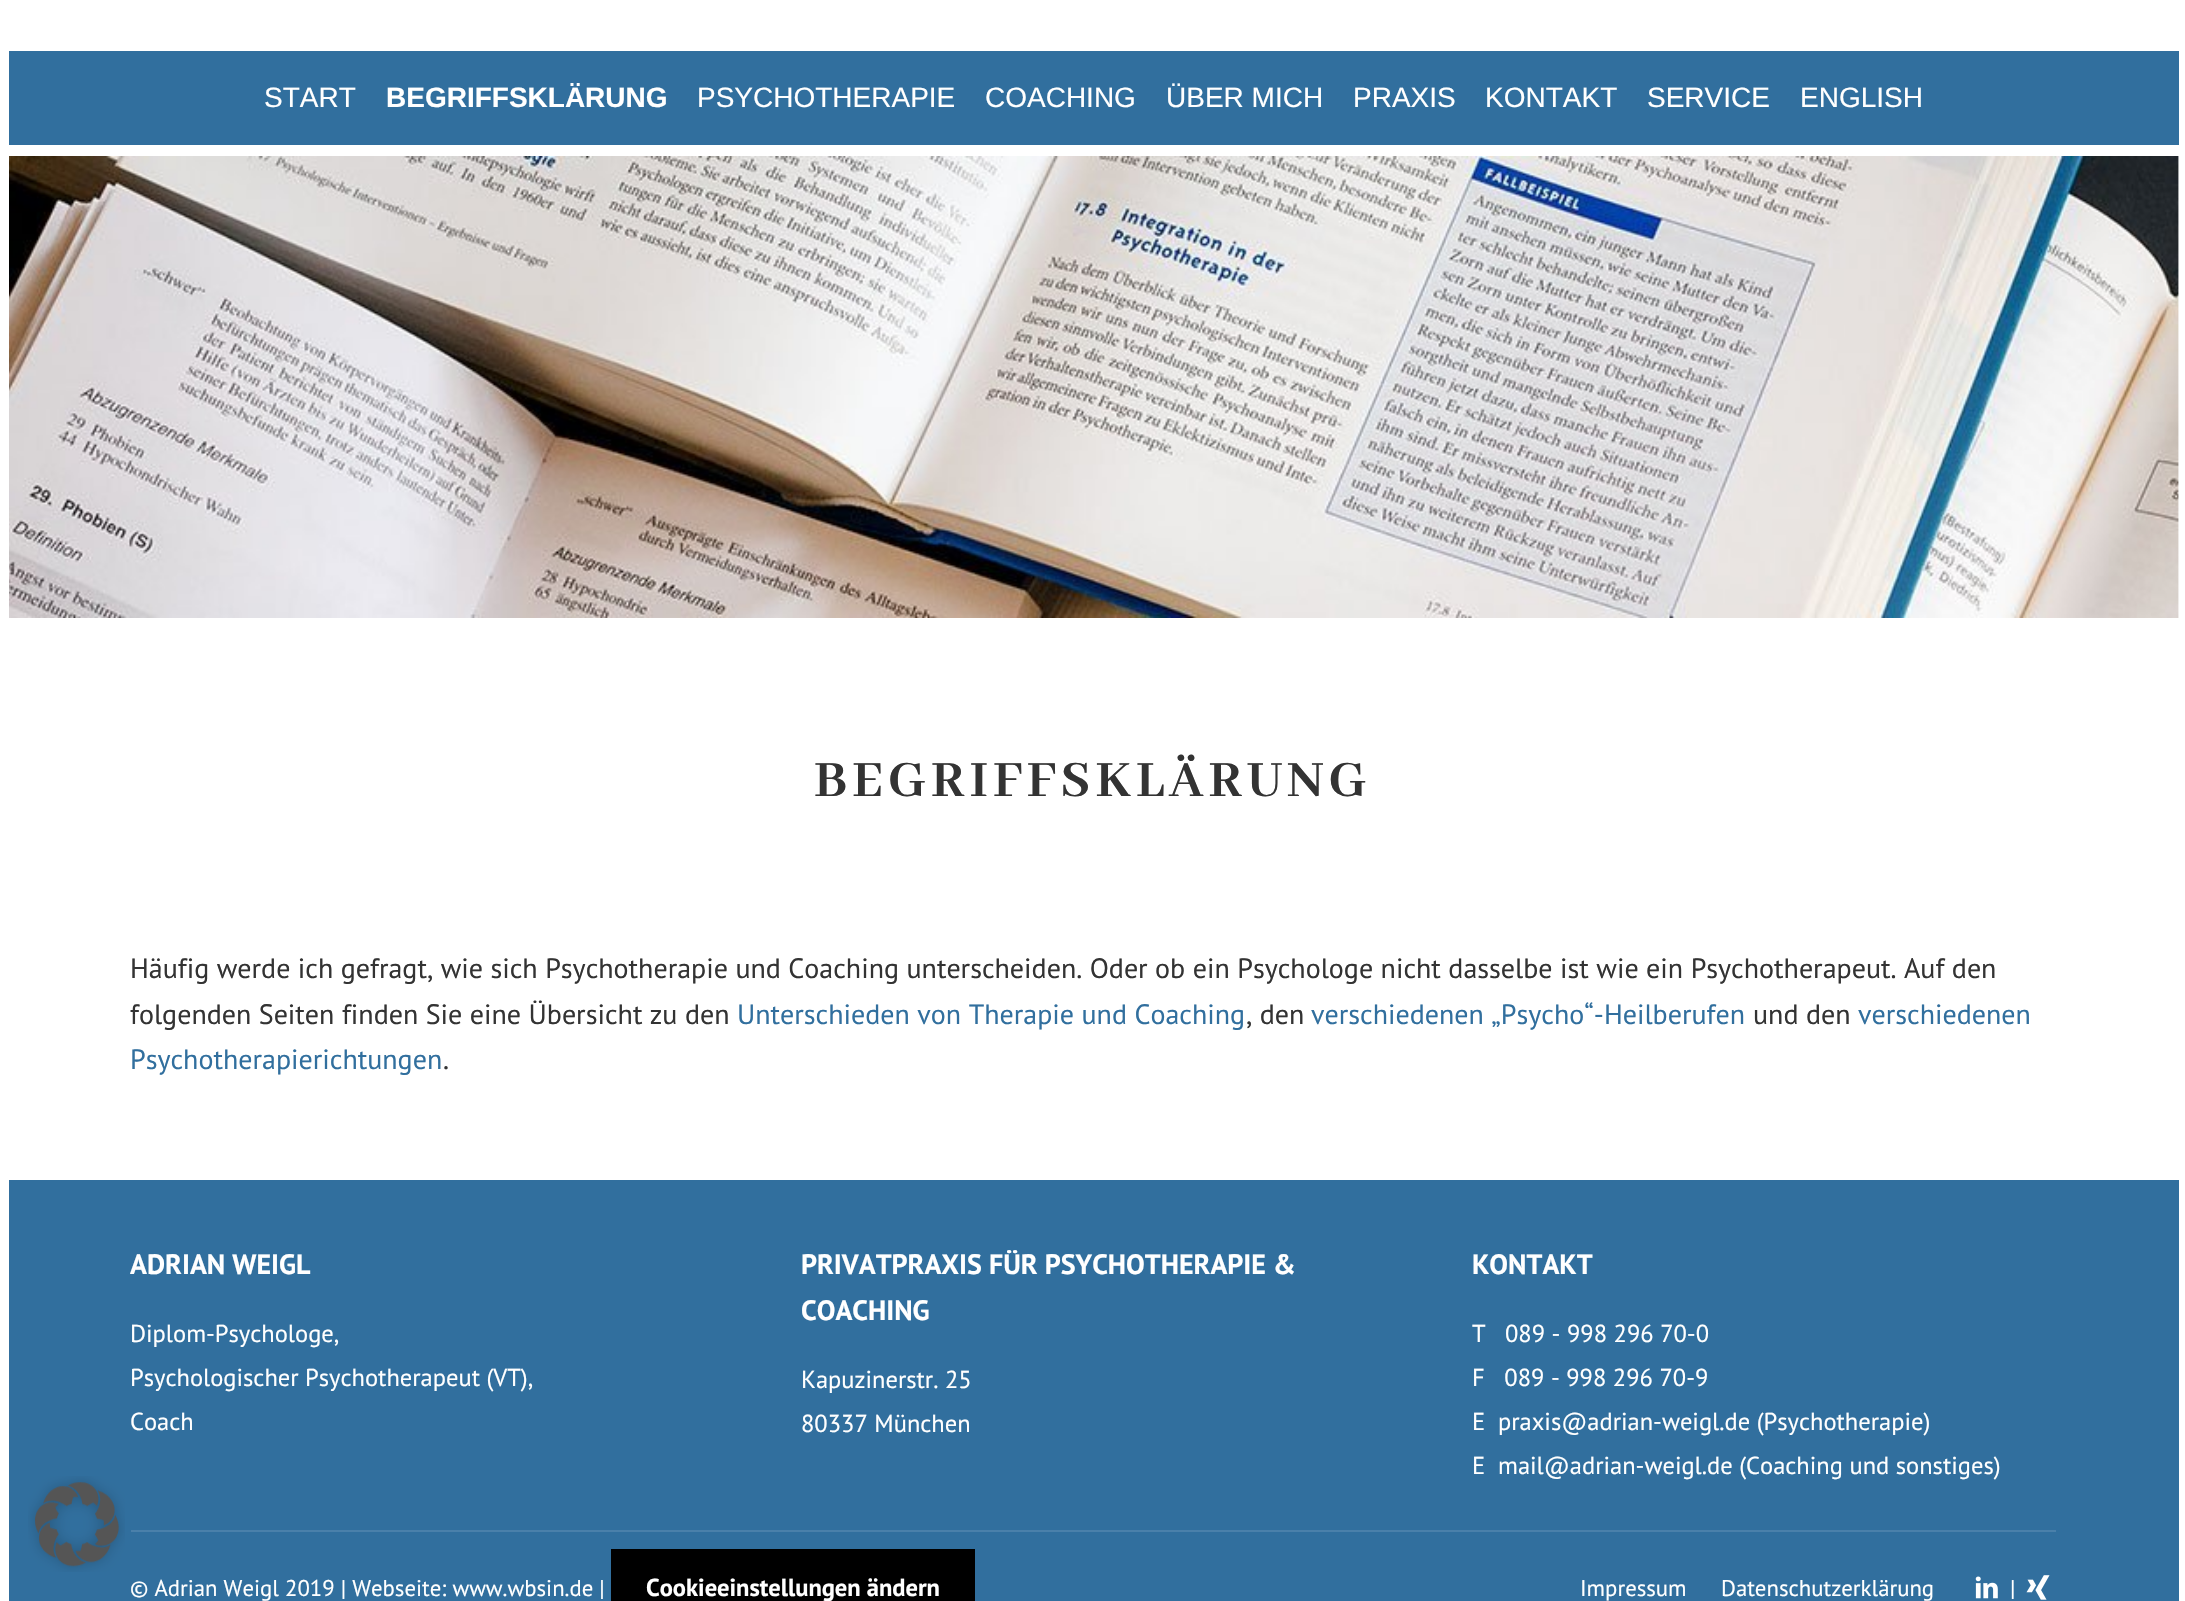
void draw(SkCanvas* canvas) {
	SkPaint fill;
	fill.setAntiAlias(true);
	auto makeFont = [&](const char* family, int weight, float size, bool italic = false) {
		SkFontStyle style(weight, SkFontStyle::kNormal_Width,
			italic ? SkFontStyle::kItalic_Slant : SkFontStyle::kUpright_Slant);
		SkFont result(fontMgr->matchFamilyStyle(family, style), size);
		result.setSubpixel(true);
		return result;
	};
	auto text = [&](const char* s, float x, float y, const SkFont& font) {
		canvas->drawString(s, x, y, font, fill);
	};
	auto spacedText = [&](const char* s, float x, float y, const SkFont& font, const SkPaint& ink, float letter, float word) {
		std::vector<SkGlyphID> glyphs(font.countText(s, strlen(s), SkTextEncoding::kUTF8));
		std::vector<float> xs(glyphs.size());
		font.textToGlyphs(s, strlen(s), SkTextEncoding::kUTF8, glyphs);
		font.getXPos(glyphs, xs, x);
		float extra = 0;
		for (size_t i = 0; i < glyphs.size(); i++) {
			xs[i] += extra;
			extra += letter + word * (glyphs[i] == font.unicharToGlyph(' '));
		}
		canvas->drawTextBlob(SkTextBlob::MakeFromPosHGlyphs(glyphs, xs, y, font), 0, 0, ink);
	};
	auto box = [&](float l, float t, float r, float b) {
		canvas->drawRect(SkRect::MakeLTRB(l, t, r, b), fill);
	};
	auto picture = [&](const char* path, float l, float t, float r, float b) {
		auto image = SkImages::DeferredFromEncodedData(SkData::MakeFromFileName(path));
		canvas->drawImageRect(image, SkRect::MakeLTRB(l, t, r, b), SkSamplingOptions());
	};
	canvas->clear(0xFFFFFFFF);
	fill.setColor(0xFF316F9E);
	box(9, 1180, 2179, 1601);
	picture("image0.png", 28, 1476, 125, 1572);
	box(9, 51, 2179, 145);
	picture("image1.png", 9, 156, 2179, 618);
	fill.setColor(0xFF4A80AA);
	box(131, 1530, 2056, 1532);
	fill.setColor(0xFF000000);
	box(611, 1549, 975, 1601);
	picture("image2.png", 1975, 1576, 1998, 1599);
	picture("image3.png", 2026, 1575, 2050, 1600);
	auto font1 = makeFont("Liberation Sans", 400, 28);
	fill.setColor(0xFFFFFFFF);
	text("START", 264, 107, font1);
	auto font2 = makeFont("Liberation Sans", 700, 28);
	text("BEGRIFFSKLÄRUNG", 386, 107, font2);
	text("PSYCHOTHERAPIE", 697, 107, font1);
	text("COACHING", 985, 107, font1);
	text("ÜBER MICH", 1166, 107, font1);
	text("PRAXIS", 1353, 107, font1);
	text("KONTAKT", 1485, 107, font1);
	text("SERVICE", 1647, 107, font1);
	text("ENGLISH", 1800, 107, font1);
	auto font3 = makeFont("Abhaya Libre", 700, 56);
	fill.setColor(0xFF333333);
	spacedText("BEGRIFFSKLÄRUNG", 814, 796, font3, fill, 5, 0);
	auto font4 = makeFont("PT Sans", 400, 28);
	text("Häufig werde ich gefragt, wie sich Psychotherapie und Coaching unterscheiden. Oder ob ein Psychologe nicht dasselbe ist wie ein Psychotherapeut. Auf den", 130, 978, font4);
	text("folgenden Seiten finden Sie eine Übersicht zu den", 130, 1024, font4);
	fill.setColor(0xFF316F9E);
	text("Unterschieden von Therapie und Coaching", 737, 1024, font4);
	fill.setColor(0xFF333333);
	text(", den", 1246, 1024, font4);
	fill.setColor(0xFF316F9E);
	text("verschiedenen „Psycho“-Heilberufen", 1311, 1024, font4);
	fill.setColor(0xFF333333);
	text("und den", 1753, 1024, font4);
	fill.setColor(0xFF316F9E);
	text("verschiedenen", 1858, 1024, font4);
	text("Psychotherapierichtungen", 130, 1069, font4);
	fill.setColor(0xFF333333);
	text(".", 443, 1069, font4);
	auto font5 = makeFont("PT Sans", 700, 28);
	fill.setColor(0xFFFFFFFF);
	text("ADRIAN WEIGL", 130, 1274, font5);
	auto font6 = makeFont("PT Sans", 400, 24.5f);
	text("Diplom-Psychologe,", 130, 1342, font6);
	text("Psychologischer Psychotherapeut (VT),", 130, 1386, font6);
	text("Coach", 130, 1430, font6);
	text("PRIVATPRAXIS FÜR PSYCHOTHERAPIE &", 801, 1274, font5);
	text("COACHING", 801, 1320, font5);
	text("Kapuzinerstr. 25", 801, 1388, font6);
	text("80337 München", 801, 1432, font6);
	text("KONTAKT", 1472, 1274, font5);
	text("T", 1472, 1342, font6);
	text("089 - 998 296 70-0", 1505, 1342, font6);
	text("F   089 - 998 296 70-9", 1472, 1386, font6);
	text("E", 1472, 1430, font6);
	text("praxis@adrian-weigl.de (Psychotherapie)", 1498, 1430, font6);
	text("E", 1472, 1474, font6);
	text("mail@adrian-weigl.de (Coaching und sonstiges)", 1498, 1474, font6);
	auto font7 = makeFont("PT Sans", 400, 22.75f);
	text("© Adrian Weigl 2019 | Webseite: www.wbsin.de |", 130, 1596, font7);
	auto font8 = makeFont("PT Sans", 700, 24.5f);
	text("Cookieeinstellungen ändern", 646, 1596, font8);
	text("Impressum", 1580, 1596, font7);
	text("Datenschutzerklärung", 1721, 1596, font7);
	text("|", 2010, 1596, font7);
}
